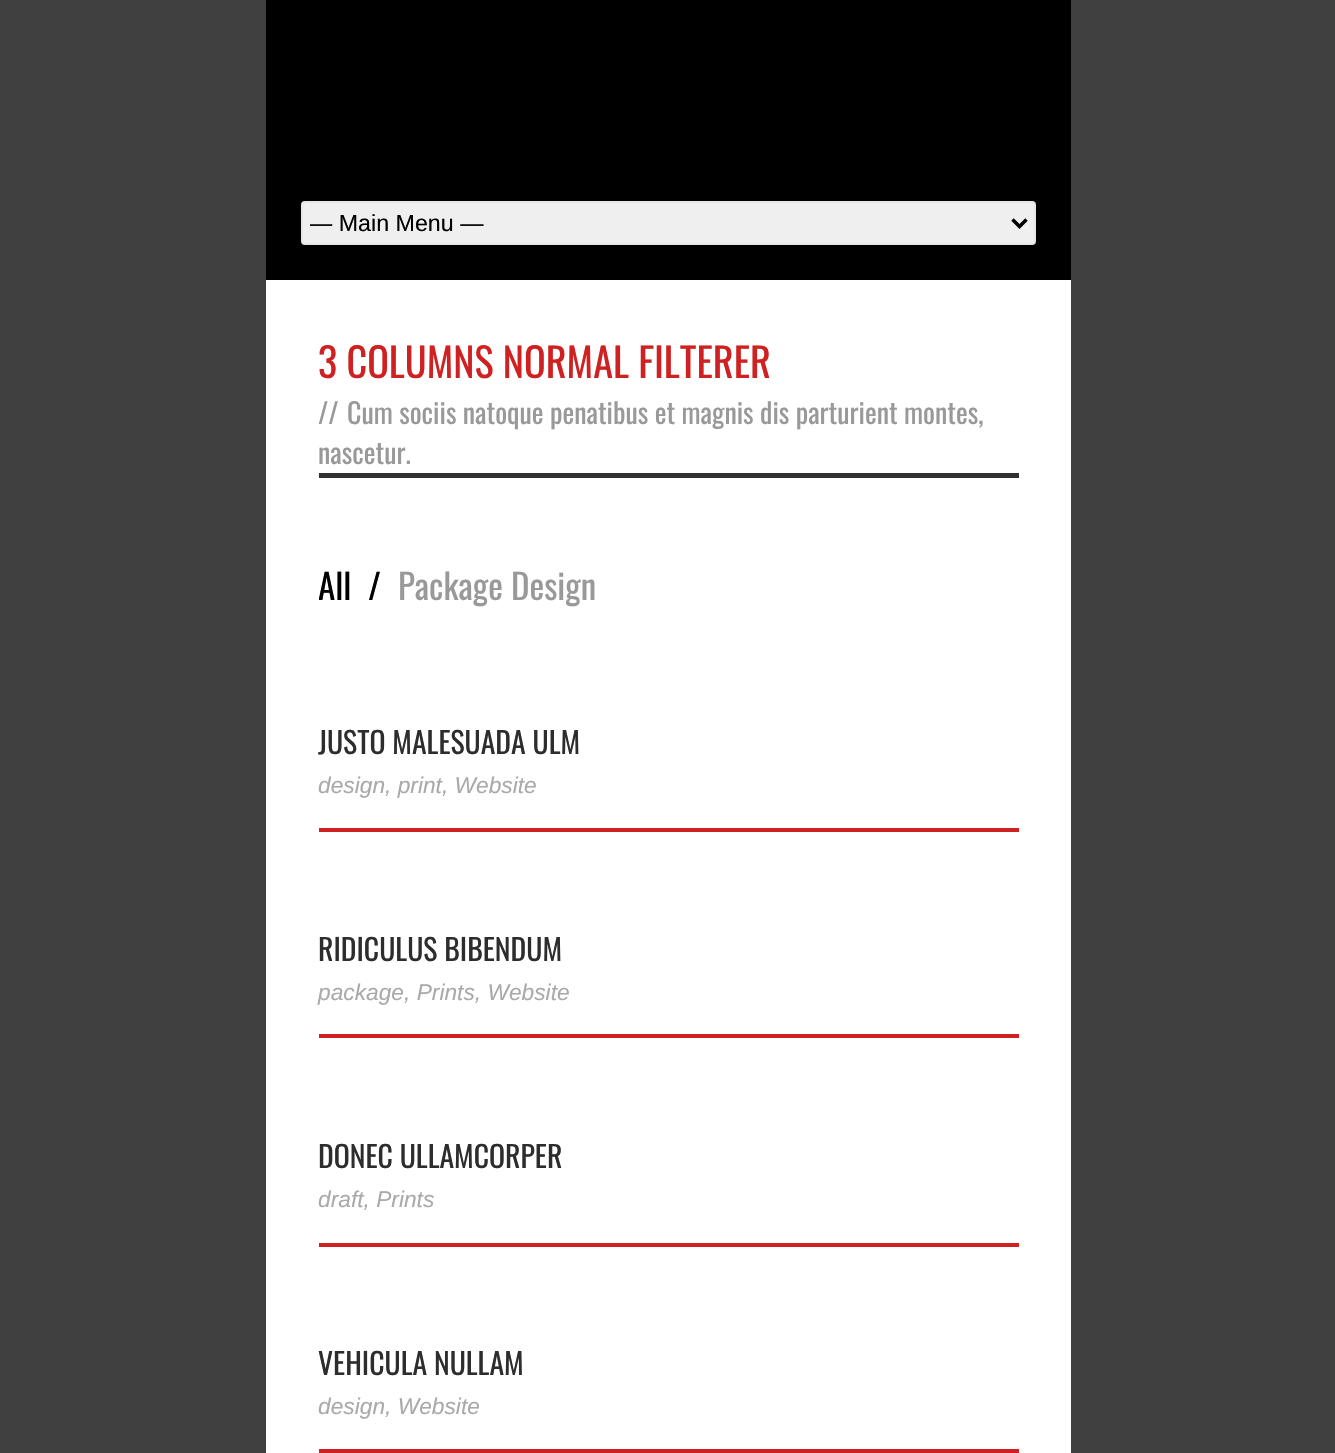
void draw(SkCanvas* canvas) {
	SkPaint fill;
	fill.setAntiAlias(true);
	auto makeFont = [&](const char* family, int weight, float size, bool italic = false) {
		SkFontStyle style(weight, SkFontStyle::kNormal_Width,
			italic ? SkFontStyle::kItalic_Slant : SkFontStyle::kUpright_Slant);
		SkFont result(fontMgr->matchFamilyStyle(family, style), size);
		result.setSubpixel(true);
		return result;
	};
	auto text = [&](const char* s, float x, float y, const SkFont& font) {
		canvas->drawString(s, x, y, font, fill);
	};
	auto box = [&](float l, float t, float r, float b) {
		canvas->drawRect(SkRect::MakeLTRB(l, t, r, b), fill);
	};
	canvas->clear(0xFF404040);
	fill.setColor(0xFF000000);
	box(266, 0, 1071, 280);
	fill.setColor(0xFFEFEFEF);
	canvas->drawRoundRect(SkRect::MakeLTRB(302, 202, 1035, 244), 3, 3, fill);
	fill.setStyle(SkPaint::kStroke_Style);
	fill.setStrokeWidth(2);
	fill.setColor(0xFFE6E6E6);
	canvas->drawRoundRect(SkRect::MakeLTRB(302, 202, 1035, 244), 3, 3, fill);
	fill.setStrokeWidth(3.5f);
	fill.setColor(0xFF000000);
	canvas->drawPath(SkPathBuilder().moveTo(1012.5f, 219.5f).lineTo(1019.5f, 226.5f).lineTo(1026.5f, 219.5f).detach(), fill);
	fill.setStyle(SkPaint::kFill_Style);
	fill.setColor(0xFFFFFFFF);
	box(266, 280, 1071, 1453);
	fill.setColor(0xFF313131);
	box(319, 473, 1019, 478);
	fill.setColor(0xFFCF2121);
	box(319, 828, 1019, 832);
	box(319, 1034, 1019, 1038);
	box(319, 1243, 1019, 1247);
	box(319, 1449, 1019, 1453);
	canvas->save();
	canvas->clipRect(SkRect::MakeLTRB(310, 208, 1006, 238));
	auto font1 = makeFont("Liberation Sans", 400, 23.25f);
	fill.setColor(0xFF000000);
	text("— Main Menu —", 309, 231, font1);
	canvas->restore();
	auto font2 = makeFont("Oswald", 400, 40.25f);
	fill.setColor(0xFFCF2121);
	text("3 COLUMNS NORMAL FILTERER", 318, 378, font2);
	auto font3 = makeFont("Oswald", 400, 28);
	fill.setColor(0xFF999999);
	text("//", 318, 424, font3);
	text("Cum sociis natoque penatibus et magnis dis parturient montes,", 347, 424, font3);
	text("nascetur.", 318, 464, font3);
	canvas->save();
	canvas->clipRect(SkRect::MakeLTRB(319, 558, 606, 616));
	auto font4 = makeFont("Oswald", 400, 35);
	fill.setColor(0xFF000000);
	text("All", 318, 600, font4);
	canvas->restore();
	text("/", 368, 600, font4);
	fill.setColor(0xFF999999);
	text("Package Design", 398, 600, font4);
	auto font5 = makeFont("Oswald", 400, 29.75f);
	fill.setColor(0xFF2D2D2D);
	text("JUSTO MALESUADA ULM", 318, 754, font5);
	auto font6 = makeFont("Liberation Sans", 400, 22.75f, true);
	fill.setColor(0xFFAAAAAA);
	text("design, print, Website", 318, 793, font6);
	fill.setColor(0xFF2D2D2D);
	text("RIDICULUS BIBENDUM", 318, 961, font5);
	fill.setColor(0xFFAAAAAA);
	text("package, Prints, Website", 318, 1000, font6);
	fill.setColor(0xFF2D2D2D);
	text("DONEC ULLAMCORPER", 318, 1168, font5);
	fill.setColor(0xFFAAAAAA);
	text("draft, Prints", 318, 1207, font6);
	fill.setColor(0xFF2D2D2D);
	text("VEHICULA NULLAM", 318, 1375, font5);
	fill.setColor(0xFFAAAAAA);
	text("design, Website", 318, 1414, font6);
}
